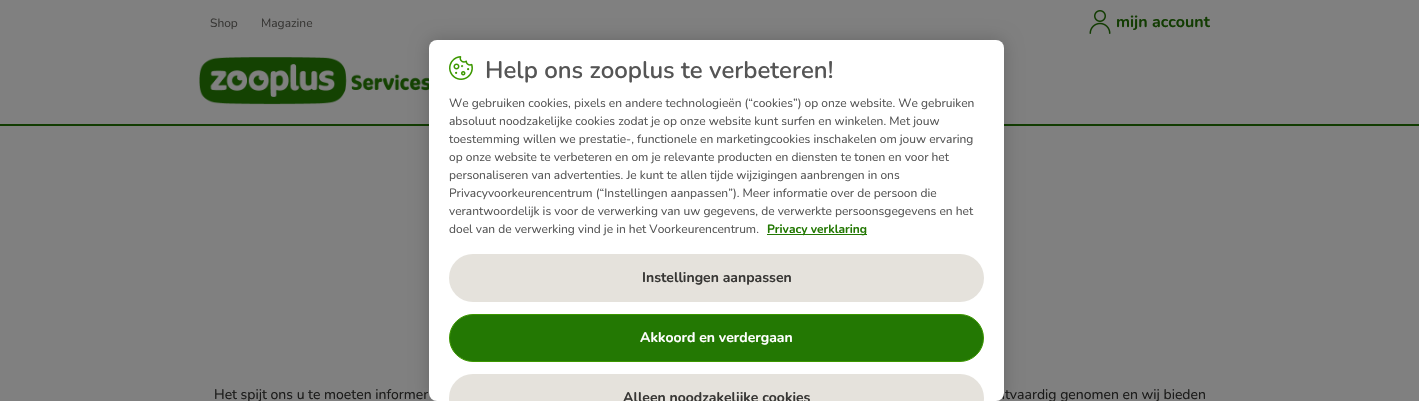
void draw(SkCanvas* canvas) {
	SkPaint fill;
	fill.setAntiAlias(true);
	auto makeFont = [&](const char* family, int weight, float size, bool italic = false) {
		SkFontStyle style(weight, SkFontStyle::kNormal_Width,
			italic ? SkFontStyle::kItalic_Slant : SkFontStyle::kUpright_Slant);
		SkFont result(fontMgr->matchFamilyStyle(family, style), size);
		result.setSubpixel(true);
		return result;
	};
	auto text = [&](const char* s, float x, float y, const SkFont& font) {
		canvas->drawString(s, x, y, font, fill);
	};
	auto box = [&](float l, float t, float r, float b) {
		canvas->drawRect(SkRect::MakeLTRB(l, t, r, b), fill);
	};
	auto roundBox = [&](float l, float t, float r, float b, float radius) {
		canvas->drawRoundRect(SkRect::MakeLTRB(l, t, r, b), radius, radius, fill);
	};
	auto picture = [&](const char* path, float l, float t, float r, float b) {
		auto image = SkImages::DeferredFromEncodedData(SkData::MakeFromFileName(path));
		canvas->drawImageRect(image, SkRect::MakeLTRB(l, t, r, b), SkSamplingOptions());
	};
	canvas->clear(0xFF808080);
	fill.setColor(0xFF123C02);
	box(0, 124, 1419, 126);
	picture("image0.png", 1089, 10, 1111, 34);
	picture("image1.png", 199, 57, 429, 105);
	fill.setColor(0x33000000);
	fill.setMaskFilter(SkMaskFilter::MakeBlur(kNormal_SkBlurStyle, 9));
	canvas->drawRoundRect(SkRect::MakeLTRB(429, 40, 1004, 401), 8, 8, fill);
	fill.setMaskFilter(nullptr);
	auto font1 = makeFont("Nunito", 400, 12);
	fill.setColor(0xFF383735);
	text("Shop", 210, 27, font1);
	text("Magazine", 261, 27, font1);
	auto font2 = makeFont("Nunito", 700, 16);
	fill.setColor(0xFF123C02);
	text("mijn account", 1116, 27, font2);
	auto font3 = makeFont("Nunito", 400, 14);
	fill.setColor(0xFF1A1A19);
	text("Het spijt ons u te moeten informer", 214, 399, font3);
	text("htvaardig genomen en wij bieden", 997, 399, font3);
	fill.setColor(0xFFFFFFFF);
	roundBox(429, 40, 1004, 401, 8);
	picture("image2.png", 449, 56, 473, 80);
	auto font4 = makeFont("Nunito", 600, 24);
	fill.setColor(0xFF555555);
	text("Help ons zooplus te verbeteren!", 485, 78, font4);
	text("We gebruiken cookies, pixels en andere technologieën (“cookies”) op onze website. We gebruiken", 449, 107, font1);
	text("absoluut noodzakelijke cookies zodat je op onze website kunt surfen en winkelen. Met jouw", 449, 125, font1);
	text("toestemming willen we prestatie-, functionele en marketingcookies inschakelen om jouw ervaring", 449, 143, font1);
	text("op onze website te verbeteren en om je relevante producten en diensten te tonen en voor het", 449, 161, font1);
	text("personaliseren van advertenties. Je kunt te allen tijde wijzigingen aanbrengen in ons", 449, 179, font1);
	text("Privacyvoorkeurencentrum (“Instellingen aanpassen”). Meer informatie over de persoon die", 449, 197, font1);
	text("verantwoordelijk is voor de verwerking van uw gegevens, de verwerkte persoonsgegevens en het", 449, 215, font1);
	text("doel van de verwerking vind je in het Voorkeurencentrum.", 449, 233, font1);
	fill.setColor(0xFF237803);
	box(767, 234, 867, 235);
	auto font5 = makeFont("Nunito", 700, 12);
	text("Privacy verklaring", 767, 233, font5);
	fill.setColor(0xFFE5E2DC);
	roundBox(449, 254, 984, 302, 24);
	auto font6 = makeFont("Nunito", 700, 14);
	fill.setColor(0xFF383735);
	text("Instellingen aanpassen", 642, 282, font6);
	fill.setColor(0xFF237803);
	canvas->drawRoundRect(SkRect::MakeLTRB(449.5f, 314.5f, 983.5f, 361.5f), 23.5f, 23.5f, fill);
	fill.setStyle(SkPaint::kStroke_Style);
	fill.setStrokeWidth(1);
	fill.setColor(0xFF3C9700);
	canvas->drawRoundRect(SkRect::MakeLTRB(449.5f, 314.5f, 983.5f, 361.5f), 23.5f, 23.5f, fill);
	fill.setStyle(SkPaint::kFill_Style);
	fill.setColor(0xFFFFFFFF);
	text("Akkoord en verdergaan", 640, 342, font6);
	fill.setColor(0xFFE5E2DC);
	roundBox(449, 374, 984, 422, 24);
	fill.setColor(0xFF383735);
	text("Alleen noodzakelijke cookies", 623, 402, font6);
}
